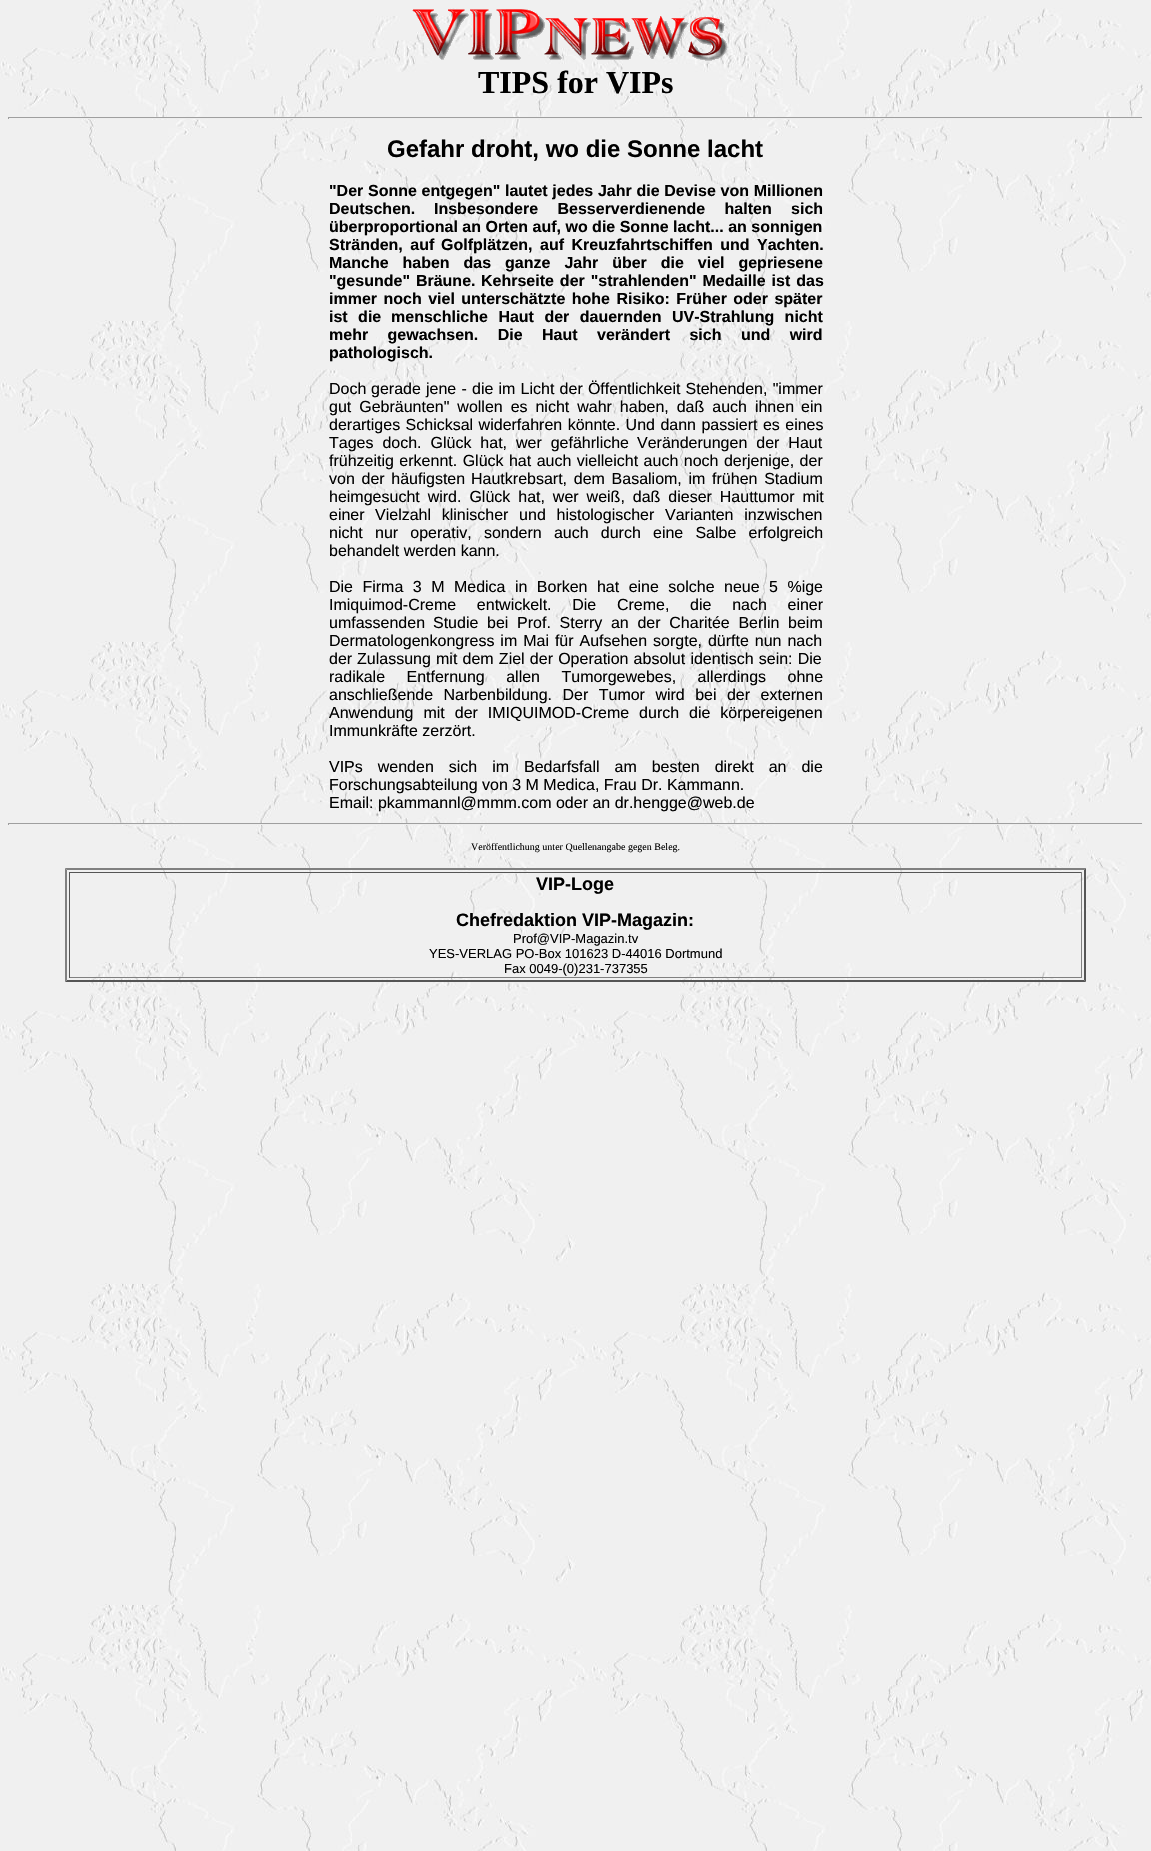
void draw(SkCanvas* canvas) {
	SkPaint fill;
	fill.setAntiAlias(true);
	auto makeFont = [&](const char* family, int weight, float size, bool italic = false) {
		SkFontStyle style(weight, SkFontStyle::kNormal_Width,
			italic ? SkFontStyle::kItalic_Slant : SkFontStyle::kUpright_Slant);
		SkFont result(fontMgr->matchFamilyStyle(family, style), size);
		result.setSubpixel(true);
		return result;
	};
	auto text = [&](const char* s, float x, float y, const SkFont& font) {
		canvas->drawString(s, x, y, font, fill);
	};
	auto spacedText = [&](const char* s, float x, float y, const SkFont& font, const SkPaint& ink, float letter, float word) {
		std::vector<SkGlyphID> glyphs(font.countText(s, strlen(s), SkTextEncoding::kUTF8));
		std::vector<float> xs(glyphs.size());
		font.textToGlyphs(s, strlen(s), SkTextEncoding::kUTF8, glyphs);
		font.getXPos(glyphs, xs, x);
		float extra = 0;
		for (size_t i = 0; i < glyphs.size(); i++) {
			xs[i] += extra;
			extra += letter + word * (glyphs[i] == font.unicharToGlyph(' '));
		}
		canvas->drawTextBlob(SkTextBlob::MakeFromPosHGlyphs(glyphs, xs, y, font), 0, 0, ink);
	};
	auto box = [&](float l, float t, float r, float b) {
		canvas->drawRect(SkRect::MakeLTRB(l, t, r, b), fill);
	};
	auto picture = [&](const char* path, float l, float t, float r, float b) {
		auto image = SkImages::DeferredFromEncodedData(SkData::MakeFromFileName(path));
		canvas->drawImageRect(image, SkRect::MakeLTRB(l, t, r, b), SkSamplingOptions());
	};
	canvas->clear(0xFFFFFFFF);
	picture("image0.png", 0, 0, 1151, 1851);
	picture("image1.png", 412, 9, 727, 61);
	fill.setColor(0xFF9F9F9F);
	box(8, 117, 1143, 118);
	fill.setColor(0xFFEEEEEE);
	box(1142, 117, 1143, 119);
	box(74, 118, 1133, 119);
	fill.setColor(0xFF9F9F9F);
	box(8, 117, 9, 119);
	box(8, 823, 1143, 824);
	fill.setColor(0xFFEEEEEE);
	box(1142, 823, 1143, 825);
	box(112, 824, 1079, 825);
	fill.setColor(0xFF9F9F9F);
	box(8, 823, 9, 825);
	fill.setColor(0xFF808080);
	canvas->drawPath(SkPathBuilder().moveTo(65, 868).lineTo(1086, 868).lineTo(1084, 870).lineTo(67, 870).close().detach(), fill);
	fill.setColor(0xFF555555);
	canvas->drawPath(SkPathBuilder().moveTo(1086, 868).lineTo(1086, 982).lineTo(1084, 980).lineTo(1084, 870).close().detach(), fill);
	canvas->drawPath(SkPathBuilder().moveTo(1086, 982).lineTo(65, 982).lineTo(67, 980).lineTo(1084, 980).close().detach(), fill);
	fill.setColor(0xFF808080);
	canvas->drawPath(SkPathBuilder().moveTo(65, 982).lineTo(65, 868).lineTo(67, 870).lineTo(67, 980).close().detach(), fill);
	fill.setColor(0xFF555555);
	box(69, 872, 1082, 873);
	fill.setColor(0xFF808080);
	box(1081, 872, 1082, 978);
	box(69, 977, 1082, 978);
	fill.setColor(0xFF555555);
	box(69, 872, 70, 978);
	auto font1 = makeFont("Liberation Serif", 700, 32);
	fill.setColor(0xFF000000);
	text("TIPS for VIPs", 478, 93, font1);
	auto font2 = makeFont("Liberation Sans", 700, 24);
	text("Gefahr droht, wo die Sonne lacht", 387, 157, font2);
	auto font3 = makeFont("Liberation Sans", 700, 16);
	spacedText("\"Der Sonne entgegen\" lautet jedes Jahr die Devise von Millionen", 329, 196, font3, fill, 0, 0.25f);
	text("Deutschen.", 329, 214, font3);
	spacedText("Insbesondere Besserverdienende halten sich", 434, 214, font3, fill, 0, 15);
	text("überproportional an Orten auf, wo die Sonne lacht... an sonnigen", 329, 232, font3);
	spacedText("Stränden, auf", 329, 250, font3, fill, 0, 3);
	spacedText("Golfplätzen, auf Kreuzfahrtschiffen und Yachten.", 441, 250, font3, fill, 0, 3);
	spacedText("Manche haben das ganze Jahr über die viel gepriesene", 329, 268, font3, fill, 0, 9.5f);
	spacedText("\"gesunde\" Bräune.", 329, 286, font3, fill, 0, 1.5f);
	spacedText("Kehrseite der \"strahlenden\" Medaille ist das", 481, 286, font3, fill, 0, 1.5f);
	spacedText("immer noch viel unterschätzte hohe Risiko: Früher oder später", 329, 304, font3, fill, 0, 2);
	spacedText("ist die", 329, 322, font3, fill, 0, 6);
	spacedText("menschliche Haut der dauernden UV-Strahlung nicht", 391, 322, font3, fill, 0, 6);
	spacedText("mehr gewachsen. Die Haut verändert sich und wird", 329, 340, font3, fill, 0, 15);
	text("pathologisch.", 329, 358, font3);
	auto font4 = makeFont("Liberation Sans", 400, 16);
	text("Doch", 329, 394, font4);
	spacedText("gerade jene - die im Licht der Öffentlichkeit Stehenden, \"immer", 371, 394, font4, fill, 0, 0.75f);
	spacedText("gut Gebräunten\" wollen es nicht wahr haben, daß auch ihnen", 329, 412, font4, fill, 0, 3.5f);
	text("ein", 801, 412, font4);
	spacedText("derartiges Schicksal widerfahren könnte. Und dann passiert es eines", 329, 430, font4, fill, 0, 1);
	spacedText("Tages doch. Glück hat, wer gefährliche", 329, 448, font4, fill, 0, 4.5f);
	spacedText("Veränderungen der Haut", 637, 448, font4, fill, 0, 4.5f);
	spacedText("frühzeitig erkennt. Glück hat auch vielleicht auch noch derjenige, der", 329, 466, font4, fill, 0, 1);
	spacedText("von der häufigsten", 329, 484, font4, fill, 0, 2.25f);
	spacedText("Hautkrebsart, dem Basaliom, im frühen Stadium", 471, 484, font4, fill, 0, 2.25f);
	spacedText("heimgesucht wird. Glück hat, wer weiß, daß dieser Hauttumor mit", 329, 502, font4, fill, 0, 3.5f);
	text("einer", 329, 520, font4);
	spacedText("Vielzahl klinischer und histologischer Varianten inzwischen", 375, 520, font4, fill, 0, 6.25f);
	spacedText("nicht nur operativ, sondern auch durch eine Salbe erfolgreich", 329, 538, font4, fill, 0, 7.75f);
	text("behandelt werden kann.", 329, 556, font4);
	spacedText("Die Firma 3 M Medica in Borken hat eine solche neue 5 %ige", 329, 592, font4, fill, 0, 5);
	spacedText("Imiquimod-Creme entwickelt. Die Creme, die nach einer", 329, 610, font4, fill, 0, 16.25f);
	text("umfassenden", 329, 628, font4);
	spacedText("Studie bei Prof. Sterry an der Charitée Berlin beim", 433, 628, font4, fill, 0, 4.25f);
	spacedText("Dermatologenkongress im Mai für Aufsehen sorgte, dürfte nun nach", 329, 646, font4, fill, 0, 1.5f);
	text("der", 329, 664, font4);
	spacedText("Zulassung mit dem Ziel der Operation absolut identisch sein: Die", 357, 664, font4, fill, 0, 0.75f);
	spacedText("radikale Entfernung allen Tumorgewebes, allerdings ohne", 329, 682, font4, fill, 0, 17);
	spacedText("anschließende Narbenbildung. Der Tumor wird bei der externen", 329, 700, font4, fill, 0, 6);
	spacedText("Anwendung mit der IMIQUIMOD-Creme durch die körpereigenen", 329, 718, font4, fill, 0, 5.5f);
	text("Immunkräfte zerzört.", 329, 736, font4);
	spacedText("VIPs wenden sich im Bedarfsfall am besten direkt an die", 329, 772, font4, fill, 0, 10.5f);
	text("Forschungsabteilung von 3 M Medica, Frau Dr. Kammann.", 329, 790, font4);
	text("Email: pkammannl@mmm.com oder an dr.hengge@web.de", 329, 808, font4);
	auto font5 = makeFont("Liberation Serif", 400, 10);
	text("Veröffentlichung unter Quellenangabe gegen Beleg.", 471, 850, font5);
	auto font6 = makeFont("Liberation Sans", 700, 18);
	text("VIP-Loge", 536, 890, font6);
	text("Chefredaktion VIP-Magazin:", 456, 926, font6);
	auto font7 = makeFont("Liberation Sans", 400, 13);
	text("Prof@VIP-Magazin.tv", 513, 943, font7);
	text("YES-VERLAG PO-Box 101623 D-44016 Dortmund", 429, 958, font7);
	text("Fax 0049-(0)231-737355", 504, 973, font7);
}
